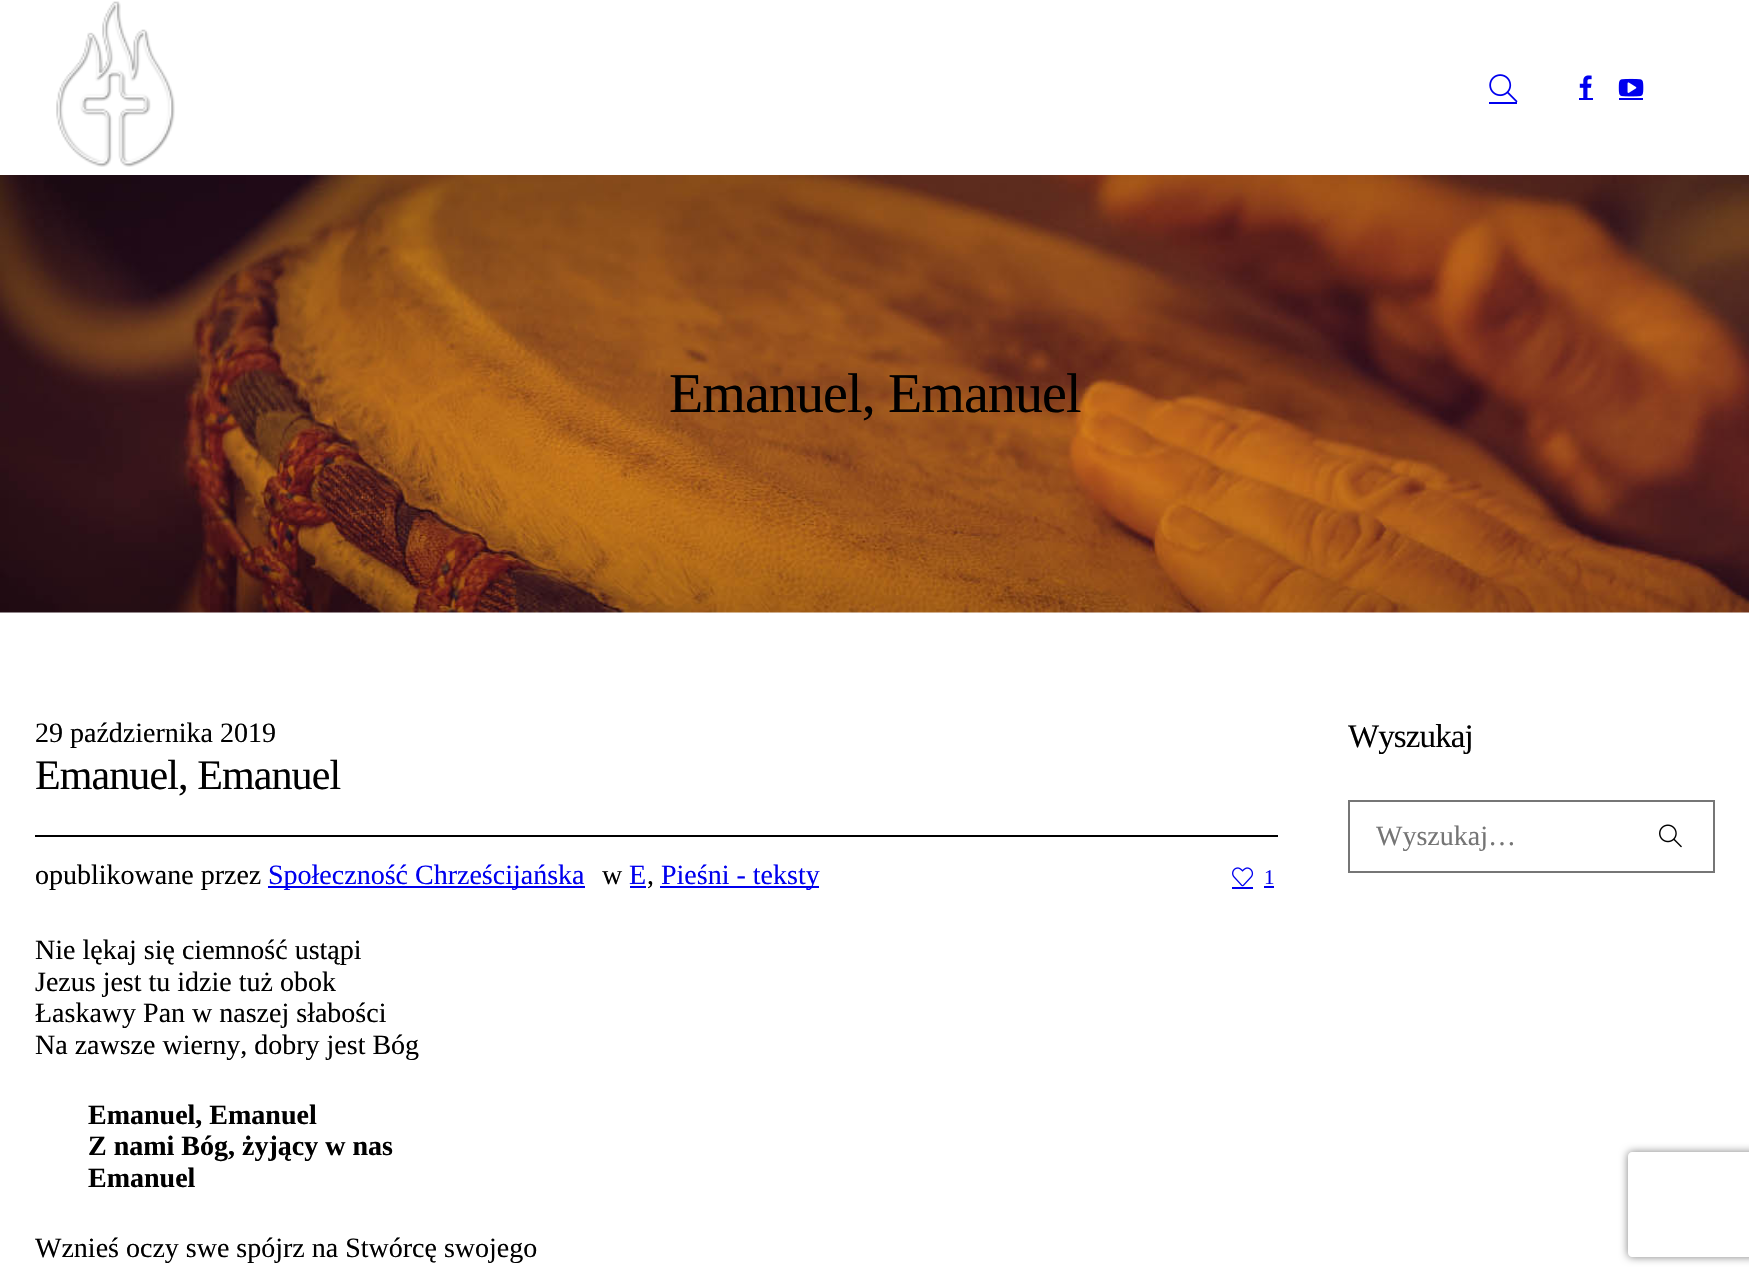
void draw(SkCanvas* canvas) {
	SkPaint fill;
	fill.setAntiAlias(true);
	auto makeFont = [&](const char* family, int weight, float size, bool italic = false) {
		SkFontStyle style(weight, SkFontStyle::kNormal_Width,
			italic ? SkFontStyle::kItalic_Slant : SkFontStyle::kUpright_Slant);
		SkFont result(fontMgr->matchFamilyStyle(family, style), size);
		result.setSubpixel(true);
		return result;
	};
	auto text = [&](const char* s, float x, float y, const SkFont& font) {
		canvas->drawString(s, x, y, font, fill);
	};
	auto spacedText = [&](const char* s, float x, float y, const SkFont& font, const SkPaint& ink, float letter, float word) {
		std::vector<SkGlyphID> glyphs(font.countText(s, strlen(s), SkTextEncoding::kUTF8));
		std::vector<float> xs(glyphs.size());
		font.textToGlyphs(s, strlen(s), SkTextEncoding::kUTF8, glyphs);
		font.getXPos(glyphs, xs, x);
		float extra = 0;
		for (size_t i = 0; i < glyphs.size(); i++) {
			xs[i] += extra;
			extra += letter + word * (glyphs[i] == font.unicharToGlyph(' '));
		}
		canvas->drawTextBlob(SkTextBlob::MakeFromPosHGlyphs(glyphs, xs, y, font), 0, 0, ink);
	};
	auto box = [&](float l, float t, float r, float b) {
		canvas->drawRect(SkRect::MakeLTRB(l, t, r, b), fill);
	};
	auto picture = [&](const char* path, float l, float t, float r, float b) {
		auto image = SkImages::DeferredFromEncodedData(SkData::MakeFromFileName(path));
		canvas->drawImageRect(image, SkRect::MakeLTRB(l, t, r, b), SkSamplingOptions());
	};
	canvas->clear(0xFFFFFFFF);
	picture("image0.png", 56, 1, 175, 167);
	fill.setColor(0xFF0000EE);
	box(1489, 102, 1517, 104);
	picture("image1.png", 1489, 74, 1518, 102);
	box(1579, 98, 1593, 100);
	picture("image2.png", 1579, 75, 1592, 98);
	box(1619, 98, 1643, 100);
	picture("image3.png", 1618, 78, 1644, 97);
	picture("image4.png", 0, 175, 1749, 613);
	fill.setColor(0xFF000000);
	box(35, 835, 1278, 837);
	fill.setColor(0xFF0000EE);
	box(268, 886, 585, 888);
	box(630, 886, 646, 888);
	box(660, 886, 819, 888);
	box(1232, 887, 1253, 889);
	picture("image5.png", 1232, 867, 1254, 887);
	box(1264, 886, 1274, 888);
	fill.setStyle(SkPaint::kStroke_Style);
	fill.setStrokeWidth(2);
	fill.setColor(0xFF767676);
	canvas->drawRect(SkRect::MakeLTRB(1349, 801, 1714, 872), fill);
	picture("image6.png", 1659, 824, 1682, 848);
	canvas->save();
	canvas->clipPath(SkPathBuilder(SkPathFillType::kEvenOdd).moveTo(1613, 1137).lineTo(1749, 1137).lineTo(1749, 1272).lineTo(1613, 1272).close().moveTo(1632, 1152).lineTo(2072, 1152).cubicTo(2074, 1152, 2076, 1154, 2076, 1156).lineTo(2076, 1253).cubicTo(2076, 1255, 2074, 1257, 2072, 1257).lineTo(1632, 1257).cubicTo(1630, 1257, 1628, 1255, 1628, 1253).lineTo(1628, 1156).cubicTo(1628, 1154, 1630, 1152, 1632, 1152).close().detach(), true);
	fill.setStyle(SkPaint::kFill_Style);
	fill.setColor(0xFF808080);
	fill.setMaskFilter(SkMaskFilter::MakeBlur(kNormal_SkBlurStyle, 4.5f));
	canvas->drawRoundRect(SkRect::MakeLTRB(1628, 1152, 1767, 1257), 4, 4, fill);
	fill.setMaskFilter(nullptr);
	canvas->restore();
	auto font1 = makeFont("Liberation Serif", 400, 56);
	fill.setColor(0xFF000000);
	spacedText("Emanuel, Emanuel", 669, 412, font1, fill, -0.9f, 0);
	auto font2 = makeFont("Liberation Serif", 400, 28);
	text("29 października 2019", 35, 742, font2);
	auto font3 = makeFont("Liberation Serif", 400, 42);
	spacedText("Emanuel, Emanuel", 35, 789, font3, fill, -0.9f, 0);
	text("opublikowane przez", 35, 884, font2);
	fill.setColor(0xFF0000EE);
	text("Społeczność Chrześcijańska", 268, 884, font2);
	fill.setColor(0xFF000000);
	text("w", 602, 884, font2);
	fill.setColor(0xFF0000EE);
	text("E", 629, 884, font2);
	fill.setColor(0xFF000000);
	text(",", 647, 884, font2);
	fill.setColor(0xFF0000EE);
	text("Pieśni - teksty", 661, 884, font2);
	auto font4 = makeFont("Liberation Serif", 400, 21);
	text("1", 1264, 884, font4);
	fill.setColor(0xFF000000);
	text("Nie lękaj się ciemność ustąpi", 35, 959, font2);
	text("Jezus jest tu idzie tuż obok", 35, 991, font2);
	text("Łaskawy Pan w naszej słabości", 35, 1022, font2);
	text("Na zawsze wierny, dobry jest Bóg", 35, 1054, font2);
	auto font5 = makeFont("Liberation Serif", 700, 28);
	text("Emanuel, Emanuel", 88, 1124, font5);
	text("Z nami Bóg, żyjący w nas", 88, 1155, font5);
	text("Emanuel", 88, 1187, font5);
	text("Wznieś oczy swe spójrz na Stwórcę swojego", 35, 1257, font2);
	auto font6 = makeFont("Liberation Serif", 400, 33);
	spacedText("Wyszukaj", 1348, 747, font6, fill, -0.9f, 0);
	fill.setColor(0xFF757575);
	text("Wyszukaj…", 1376, 845, font2);
}
